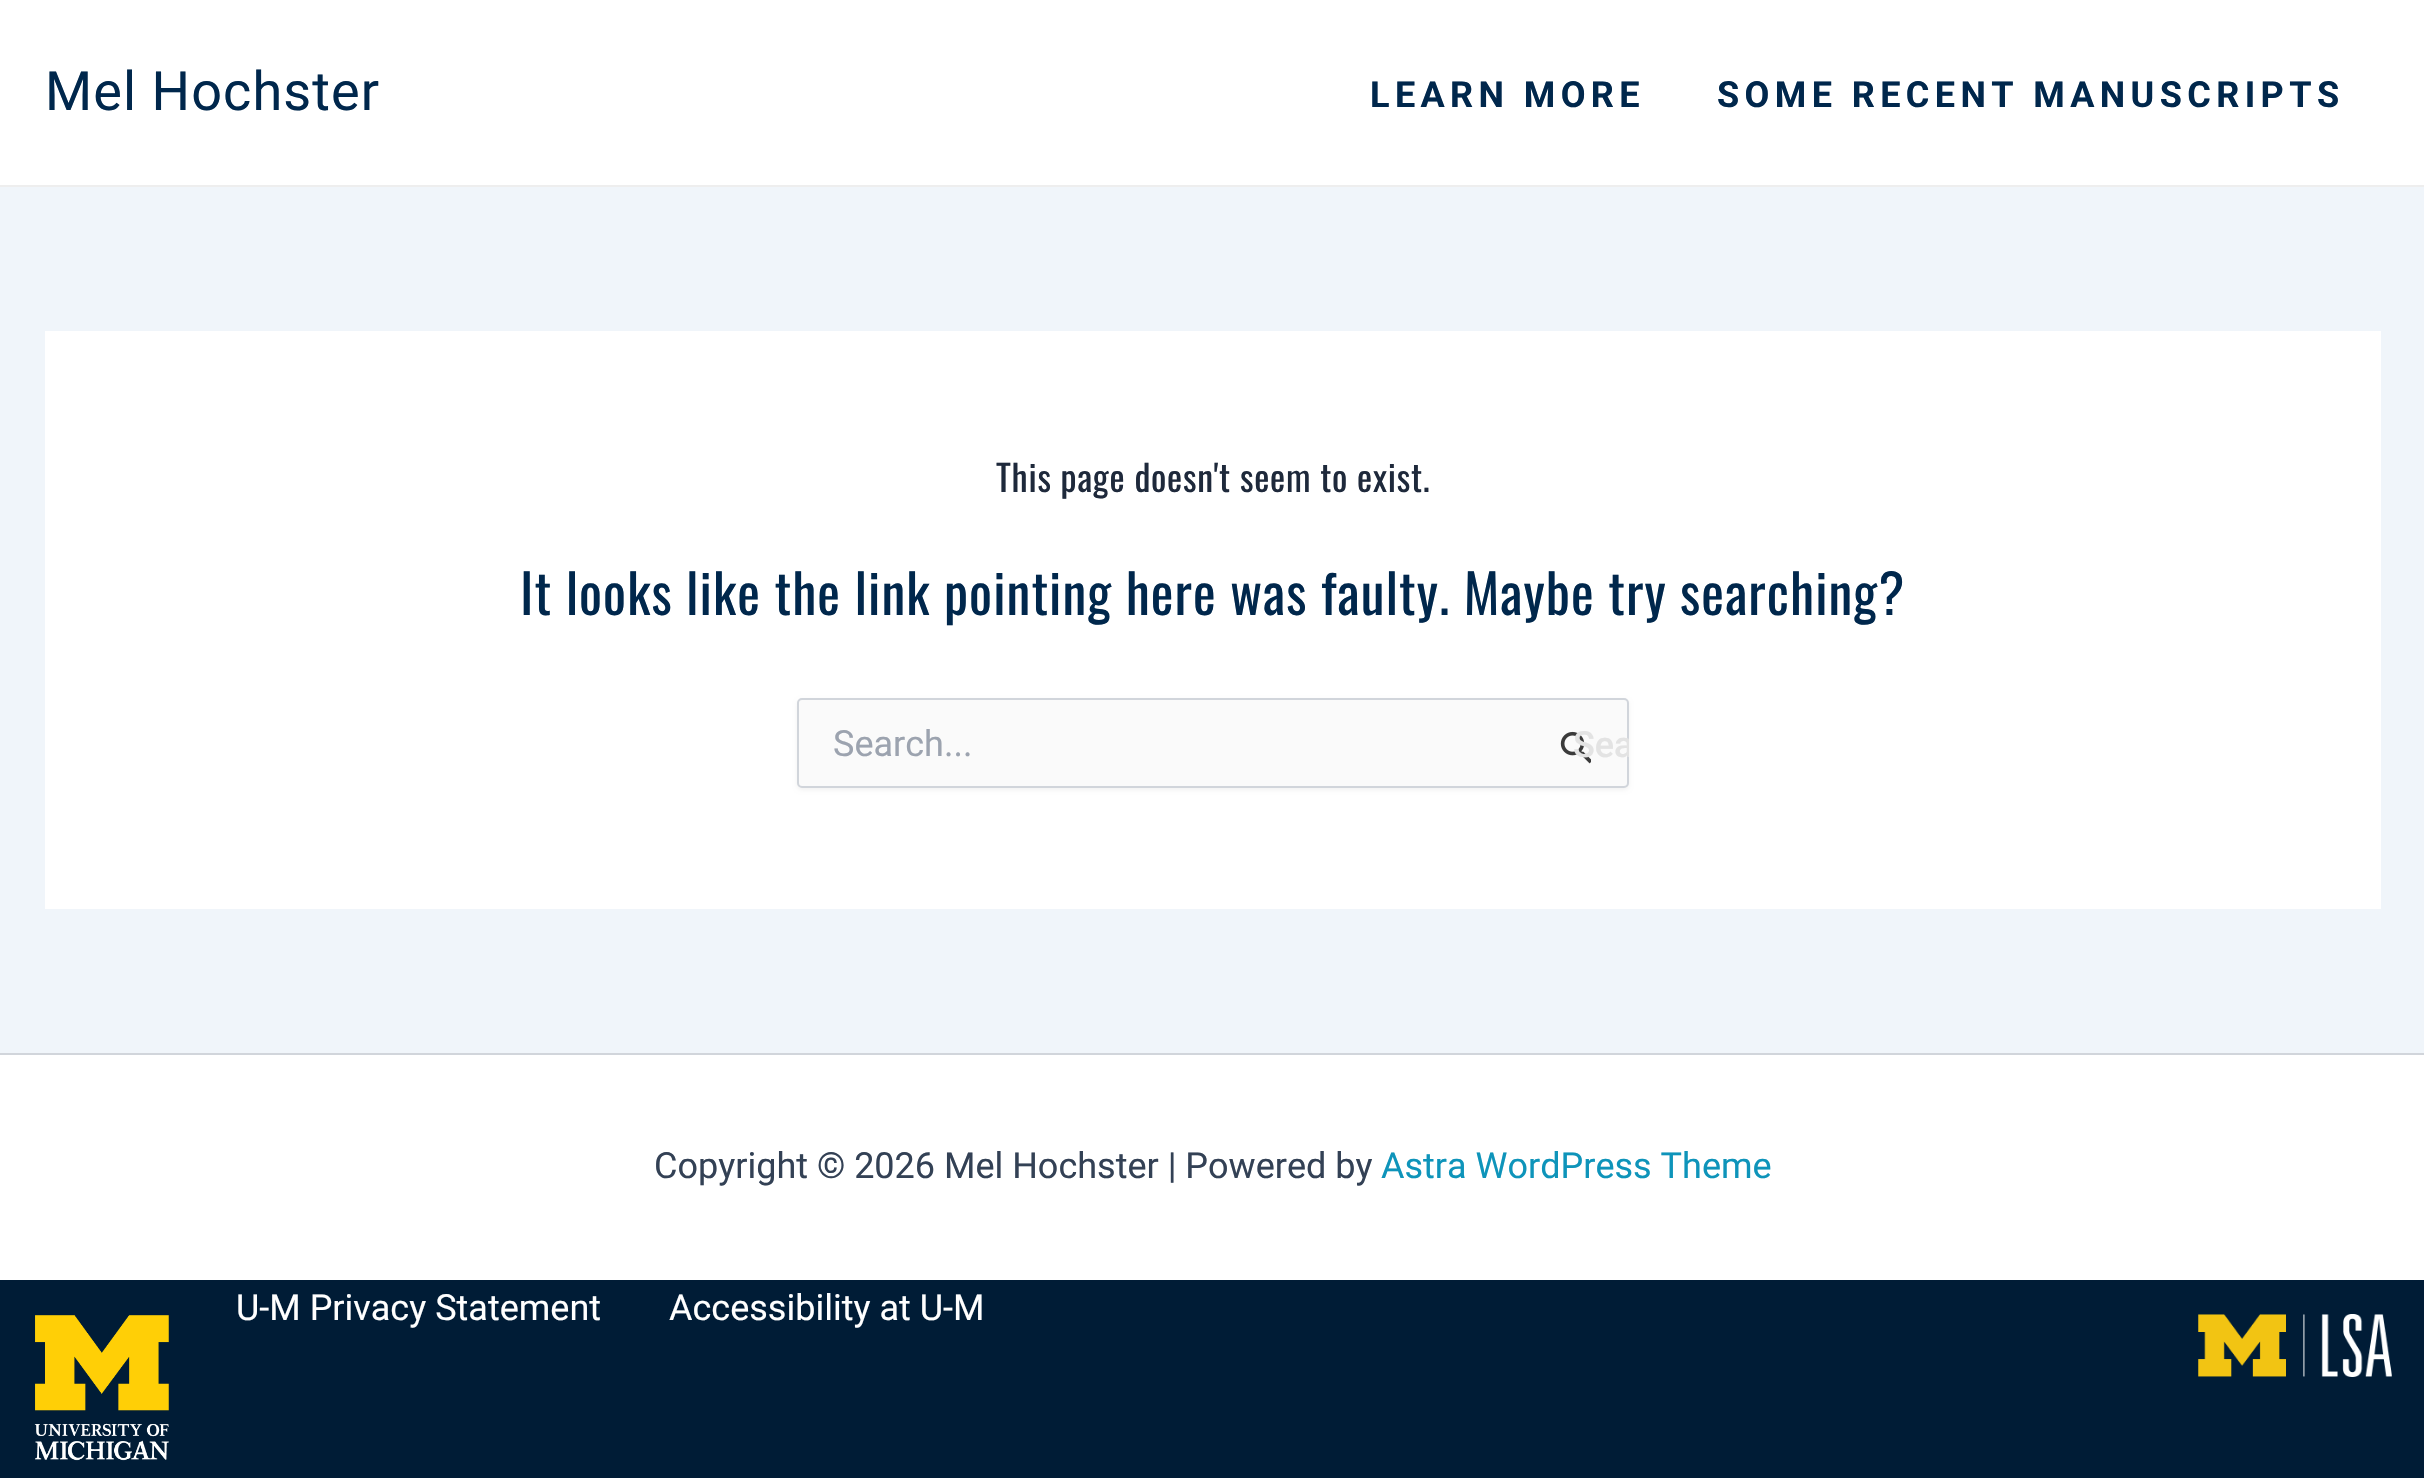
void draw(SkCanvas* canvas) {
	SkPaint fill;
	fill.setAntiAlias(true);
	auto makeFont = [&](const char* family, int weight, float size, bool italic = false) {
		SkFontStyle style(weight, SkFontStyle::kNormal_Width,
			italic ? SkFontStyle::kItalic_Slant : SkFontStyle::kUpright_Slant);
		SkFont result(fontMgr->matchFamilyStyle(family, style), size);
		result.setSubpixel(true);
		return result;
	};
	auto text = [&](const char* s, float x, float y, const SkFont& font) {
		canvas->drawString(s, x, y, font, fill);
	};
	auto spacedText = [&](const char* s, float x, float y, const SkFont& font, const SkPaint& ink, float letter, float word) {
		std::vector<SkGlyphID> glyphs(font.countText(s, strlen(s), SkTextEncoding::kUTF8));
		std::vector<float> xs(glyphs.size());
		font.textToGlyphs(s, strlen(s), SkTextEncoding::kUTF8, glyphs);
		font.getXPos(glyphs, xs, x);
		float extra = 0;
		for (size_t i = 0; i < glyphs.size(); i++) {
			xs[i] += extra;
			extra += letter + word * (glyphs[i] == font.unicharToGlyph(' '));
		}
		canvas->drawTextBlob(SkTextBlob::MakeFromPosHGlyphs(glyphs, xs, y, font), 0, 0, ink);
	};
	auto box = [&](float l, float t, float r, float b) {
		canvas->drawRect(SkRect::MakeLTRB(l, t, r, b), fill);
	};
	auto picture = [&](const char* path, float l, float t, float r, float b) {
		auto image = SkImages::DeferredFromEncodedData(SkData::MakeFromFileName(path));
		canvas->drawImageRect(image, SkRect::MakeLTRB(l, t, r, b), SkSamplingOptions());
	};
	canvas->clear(0xFFF0F5FA);
	fill.setColor(0xFFFFFFFF);
	box(0, 0, 2424, 185);
	fill.setColor(0xFFEEEEEE);
	box(0, 185, 2424, 187);
	fill.setColor(0xFFFFFFFF);
	box(45, 331, 2381, 909);
	fill.setColor(0x0D000000);
	fill.setMaskFilter(SkMaskFilter::MakeBlur(kNormal_SkBlurStyle, 2));
	canvas->drawRoundRect(SkRect::MakeLTRB(797, 700, 1629, 790), 5, 5, fill);
	fill.setMaskFilter(nullptr);
	fill.setColor(0xFFFAFAFA);
	canvas->drawRoundRect(SkRect::MakeLTRB(798, 699, 1628, 787), 4, 4, fill);
	fill.setStyle(SkPaint::kStroke_Style);
	fill.setStrokeWidth(2);
	fill.setColor(0xFFD1D5DB);
	canvas->drawRoundRect(SkRect::MakeLTRB(798, 699, 1628, 787), 4, 4, fill);
	picture("image0.png", 1560, 731, 1591, 764);
	fill.setStyle(SkPaint::kFill_Style);
	fill.setColor(0xFFFFFFFF);
	box(0, 1055, 2424, 1280);
	fill.setColor(0xFFD1D5DB);
	box(0, 1053, 2424, 1055);
	fill.setColor(0xFF001C36);
	box(0, 1280, 2424, 1478);
	picture("image1.png", 34, 1315, 169, 1461);
	picture("image2.png", 2198, 1314, 2392, 1377);
	auto font1 = makeFont("Roboto", 400, 54);
	fill.setColor(0xFF00274C);
	spacedText("Mel Hochster", 45, 110, font1, fill, 1.08f, 0);
	auto font2 = makeFont("Roboto", 700, 36);
	spacedText("LEARN MORE", 1370, 107, font2, fill, 5.4f, 0);
	spacedText("SOME RECENT MANUSCRIPTS", 1717, 107, font2, fill, 5.4f, 0);
	auto font3 = makeFont("Oswald", 400, 36);
	fill.setColor(0xFF1E293B);
	spacedText("This page doesn't seem to exist.", 996, 492, font3, fill, 0.75f, 0);
	auto font4 = makeFont("Oswald", 400, 54);
	fill.setColor(0xFF00274C);
	spacedText("It looks like the link pointing here was faulty. Maybe try searching?", 520, 615, font4, fill, 1.08f, 0);
	auto font5 = makeFont("Roboto", 400, 36);
	fill.setColor(0xFF9CA3AF);
	text("Search...", 833, 756, font5);
	canvas->save();
	canvas->clipPath(SkPathBuilder().moveTo(1533, 698).lineTo(1624, 698).cubicTo(1627, 698, 1629, 700, 1629, 703).lineTo(1629, 787).cubicTo(1629, 790, 1627, 792, 1624, 792).lineTo(1533, 792).cubicTo(1530, 792, 1528, 790, 1528, 787).lineTo(1528, 703).cubicTo(1528, 700, 1530, 698, 1533, 698).close().detach(), true);
	auto font6 = makeFont("Roboto", 500, 36);
	fill.setColor(0xFFE3E3E3);
	text("Sea", 1573, 757, font6);
	canvas->restore();
	fill.setColor(0xFF334155);
	text("Copyright © 2026 Mel Hochster | Powered by", 654, 1178, font5);
	fill.setColor(0xFF0E94BA);
	text("Astra WordPress Theme", 1381, 1178, font5);
	fill.setColor(0xFFFFFFFF);
	text("U-M Privacy Statement", 236, 1320, font5);
	text("Accessibility at U-M", 669, 1320, font5);
}
